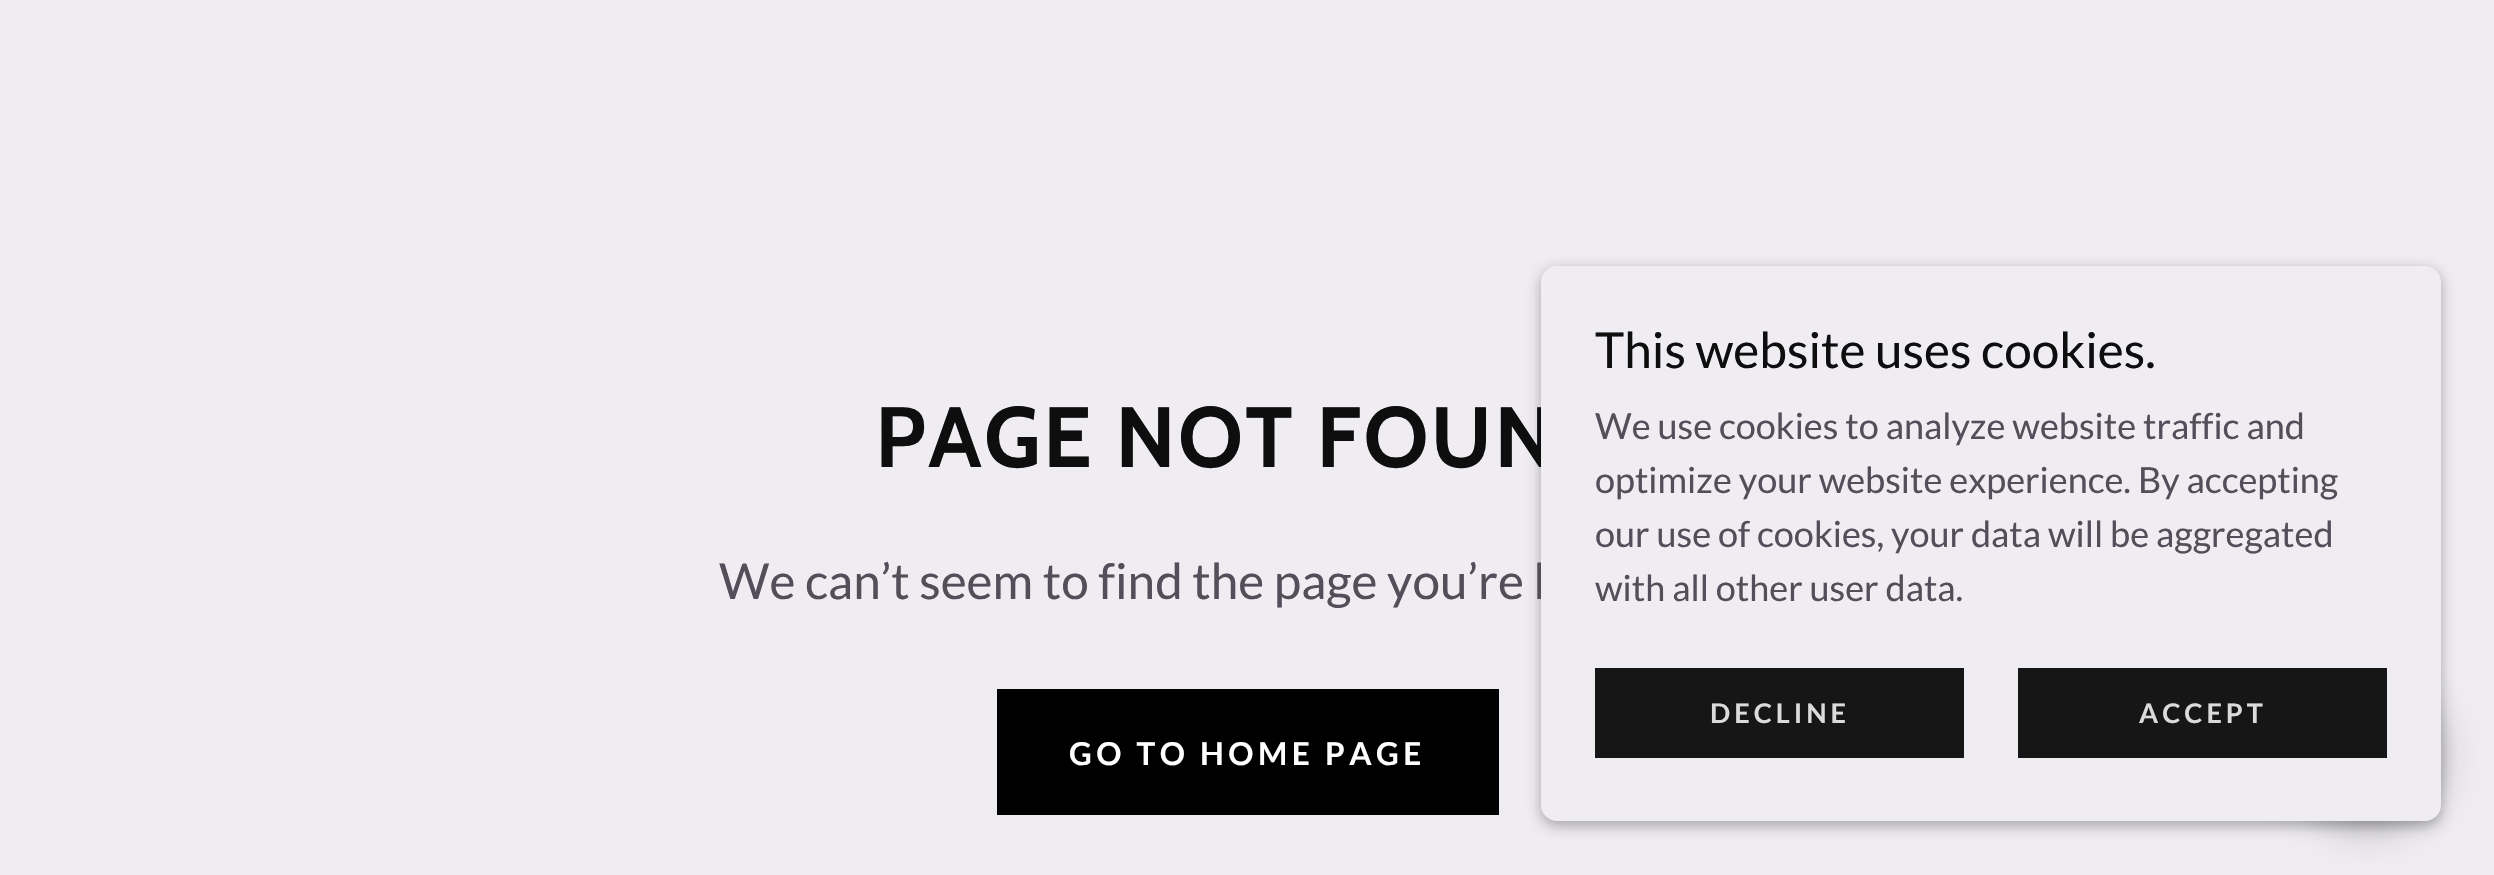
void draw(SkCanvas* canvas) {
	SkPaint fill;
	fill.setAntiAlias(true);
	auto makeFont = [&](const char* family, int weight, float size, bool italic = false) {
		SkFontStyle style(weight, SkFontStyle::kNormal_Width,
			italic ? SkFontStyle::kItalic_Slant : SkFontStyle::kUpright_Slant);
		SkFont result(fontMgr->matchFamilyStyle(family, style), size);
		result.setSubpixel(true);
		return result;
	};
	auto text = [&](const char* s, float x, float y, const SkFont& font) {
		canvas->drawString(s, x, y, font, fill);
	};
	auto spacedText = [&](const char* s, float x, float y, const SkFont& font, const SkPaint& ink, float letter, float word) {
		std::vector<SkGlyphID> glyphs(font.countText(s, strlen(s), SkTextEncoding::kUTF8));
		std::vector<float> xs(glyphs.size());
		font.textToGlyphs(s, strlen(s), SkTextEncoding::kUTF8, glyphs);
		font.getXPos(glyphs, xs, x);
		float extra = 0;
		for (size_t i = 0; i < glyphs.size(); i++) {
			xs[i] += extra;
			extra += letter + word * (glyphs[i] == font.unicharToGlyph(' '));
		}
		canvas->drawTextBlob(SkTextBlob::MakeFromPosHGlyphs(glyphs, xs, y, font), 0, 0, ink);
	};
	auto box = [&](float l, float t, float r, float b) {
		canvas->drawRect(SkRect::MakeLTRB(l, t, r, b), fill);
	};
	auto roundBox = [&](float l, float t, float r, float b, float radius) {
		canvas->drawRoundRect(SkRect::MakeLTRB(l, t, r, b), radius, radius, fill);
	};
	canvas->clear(0xFFEFEDF2);
	fill.setColor(0xFF000000);
	box(997, 689, 1499, 815);
	fill.setColor(0x4D000000);
	fill.setMaskFilter(SkMaskFilter::MakeBlur(kNormal_SkBlurStyle, 7));
	canvas->drawRoundRect(SkRect::MakeLTRB(1541, 270, 2441, 826), 16, 16, fill);
	fill.setMaskFilter(nullptr);
	fill.setColor(0x40000000);
	fill.setMaskFilter(SkMaskFilter::MakeBlur(kNormal_SkBlurStyle, 20));
	canvas->drawRoundRect(SkRect::MakeLTRB(2295, 682, 2441, 828), 73, 73, fill);
	fill.setMaskFilter(nullptr);
	auto font1 = makeFont("Cabin", 700, 85.5f);
	fill.setColor(0xFF0E0E0F);
	spacedText("PAGE NOT FOUN", 875, 467, font1, fill, 2.25f, 0);
	auto font2 = makeFont("Lato", 400, 49.5f);
	fill.setColor(0xFF534E5A);
	text("We can’t seem to find the page you’re l", 719, 599, font2);
	auto font3 = makeFont("Lato", 700, 31.5f);
	fill.setColor(0xFFFFFFFF);
	spacedText("GO TO HOME PAGE", 1069, 765, font3, fill, 4.5f, 0);
	fill.setColor(0xFFEFEDF2);
	roundBox(1541, 266, 2441, 821, 16);
	fill.setColor(0xFF0E0E0F);
	text("This website uses cookies.", 1595, 368, font2);
	auto font4 = makeFont("Lato", 400, 36);
	fill.setColor(0xFF534E5A);
	text("We use cookies to analyze website traffic and", 1595, 439, font4);
	text("optimize your website experience. By accepting", 1595, 493, font4);
	text("our use of cookies, your data will be aggregated", 1595, 547, font4);
	text("with all other user data.", 1595, 601, font4);
	fill.setColor(0xFF161616);
	box(1595, 668, 1964, 758);
	auto font5 = makeFont("Lato", 700, 27);
	fill.setColor(0xFFDBDBDB);
	spacedText("DECLINE", 1710, 723, font5, fill, 4, 0);
	fill.setColor(0xFF161616);
	box(2018, 668, 2387, 758);
	fill.setColor(0xFFDBDBDB);
	spacedText("ACCEPT", 2139, 723, font5, fill, 4, 0);
}
